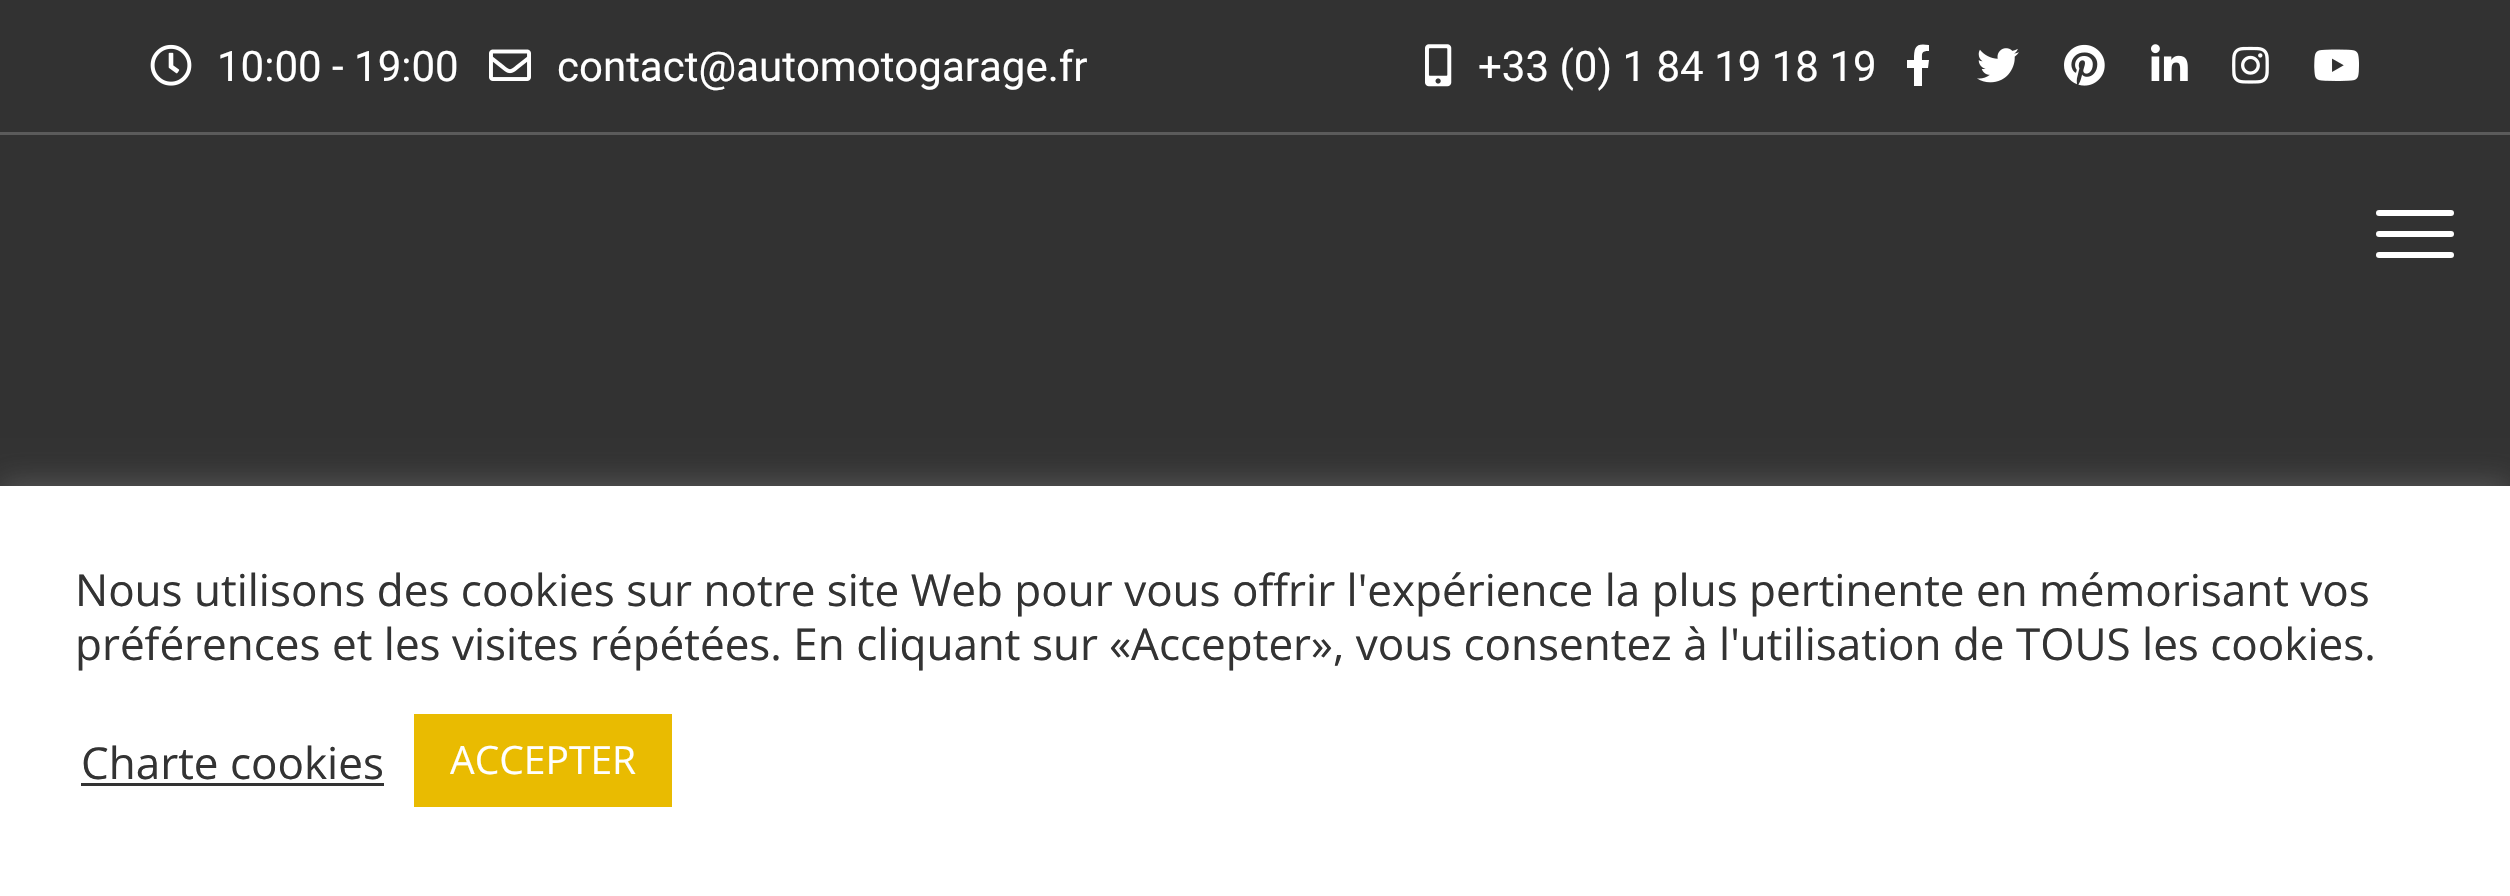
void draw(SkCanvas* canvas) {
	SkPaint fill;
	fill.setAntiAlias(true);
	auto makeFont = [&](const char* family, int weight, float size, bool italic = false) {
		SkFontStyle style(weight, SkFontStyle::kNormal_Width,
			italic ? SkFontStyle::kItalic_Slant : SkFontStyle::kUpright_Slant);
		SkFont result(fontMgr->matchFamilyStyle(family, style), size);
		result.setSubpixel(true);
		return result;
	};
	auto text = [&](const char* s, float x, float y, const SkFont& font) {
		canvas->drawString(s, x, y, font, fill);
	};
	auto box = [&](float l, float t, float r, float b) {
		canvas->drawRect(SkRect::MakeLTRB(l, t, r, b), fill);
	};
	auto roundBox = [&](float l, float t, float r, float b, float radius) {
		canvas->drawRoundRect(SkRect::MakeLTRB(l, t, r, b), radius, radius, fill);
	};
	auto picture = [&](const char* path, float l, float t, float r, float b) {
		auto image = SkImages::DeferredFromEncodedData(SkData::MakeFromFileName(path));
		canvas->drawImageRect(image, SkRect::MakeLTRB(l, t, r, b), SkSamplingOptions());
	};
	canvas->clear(0xFF323232);
	fill.setColor(0xFF5B5B5B);
	box(0, 132, 2510, 135);
	picture("image0.png", 150, 44, 192, 86);
	picture("image1.png", 489, 49, 531, 81);
	picture("image2.png", 1425, 44, 1452, 87);
	fill.setColor(0xFFFFFFFF);
	canvas->drawPath(SkPathBuilder().moveTo(1928, 68).lineTo(1922, 68).lineTo(1922, 86).lineTo(1914, 86).lineTo(1914, 68).lineTo(1907, 68).lineTo(1907, 60).lineTo(1914, 60).cubicTo(1914, 46, 1916, 43, 1929, 45).lineTo(1929, 51).cubicTo(1921, 51, 1922, 53, 1922, 60).lineTo(1929, 60).close().detach(), fill);
	picture("image3.png", 1977, 48, 2019, 83);
	picture("image4.png", 2064, 44, 2105, 86);
	picture("image5.png", 2151, 44, 2188, 81);
	picture("image6.png", 2232, 46, 2269, 84);
	picture("image7.png", 2314, 49, 2359, 81);
	roundBox(2376, 210, 2454, 216, 3);
	roundBox(2376, 231, 2454, 237, 3);
	roundBox(2376, 252, 2454, 258, 3);
	fill.setColor(0x4DACABAB);
	fill.setMaskFilter(SkMaskFilter::MakeBlur(kNormal_SkBlurStyle, 15));
	canvas->drawRect(SkRect::MakeLTRB(0, 483, 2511, 894), fill);
	fill.setMaskFilter(nullptr);
	fill.setColor(0xFFFFFFFF);
	box(0, 486, 2510, 896);
	fill.setColor(0xFF333333);
	box(81, 783, 384, 786);
	fill.setColor(0xFFE9BB01);
	box(414, 714, 672, 807);
	auto font1 = makeFont("Roboto", 400, 42);
	fill.setColor(0xFFFFFFFF);
	text("10:00 - 19:00", 217, 81, font1);
	text("contact@automotogarage.fr", 557, 81, font1);
	text("+33 (0) 1 84 19 18 19", 1478, 81, font1);
	auto font2 = makeFont("Open Sans", 400, 44);
	fill.setColor(0xFF333333);
	text("Nous utilisons des cookies sur notre site Web pour vous offrir l'expérience la plus pertinente en mémorisant vos", 75, 606, font2);
	text("préférences et les visites répétées. En cliquant sur «Accepter», vous consentez à l'utilisation de TOUS les cookies.", 75, 660, font2);
	text("Charte cookies", 81, 779, font2);
	auto font3 = makeFont("Open Sans", 400, 39);
	fill.setColor(0xFFFFFFFF);
	text("ACCEPTER", 450, 774, font3);
}
